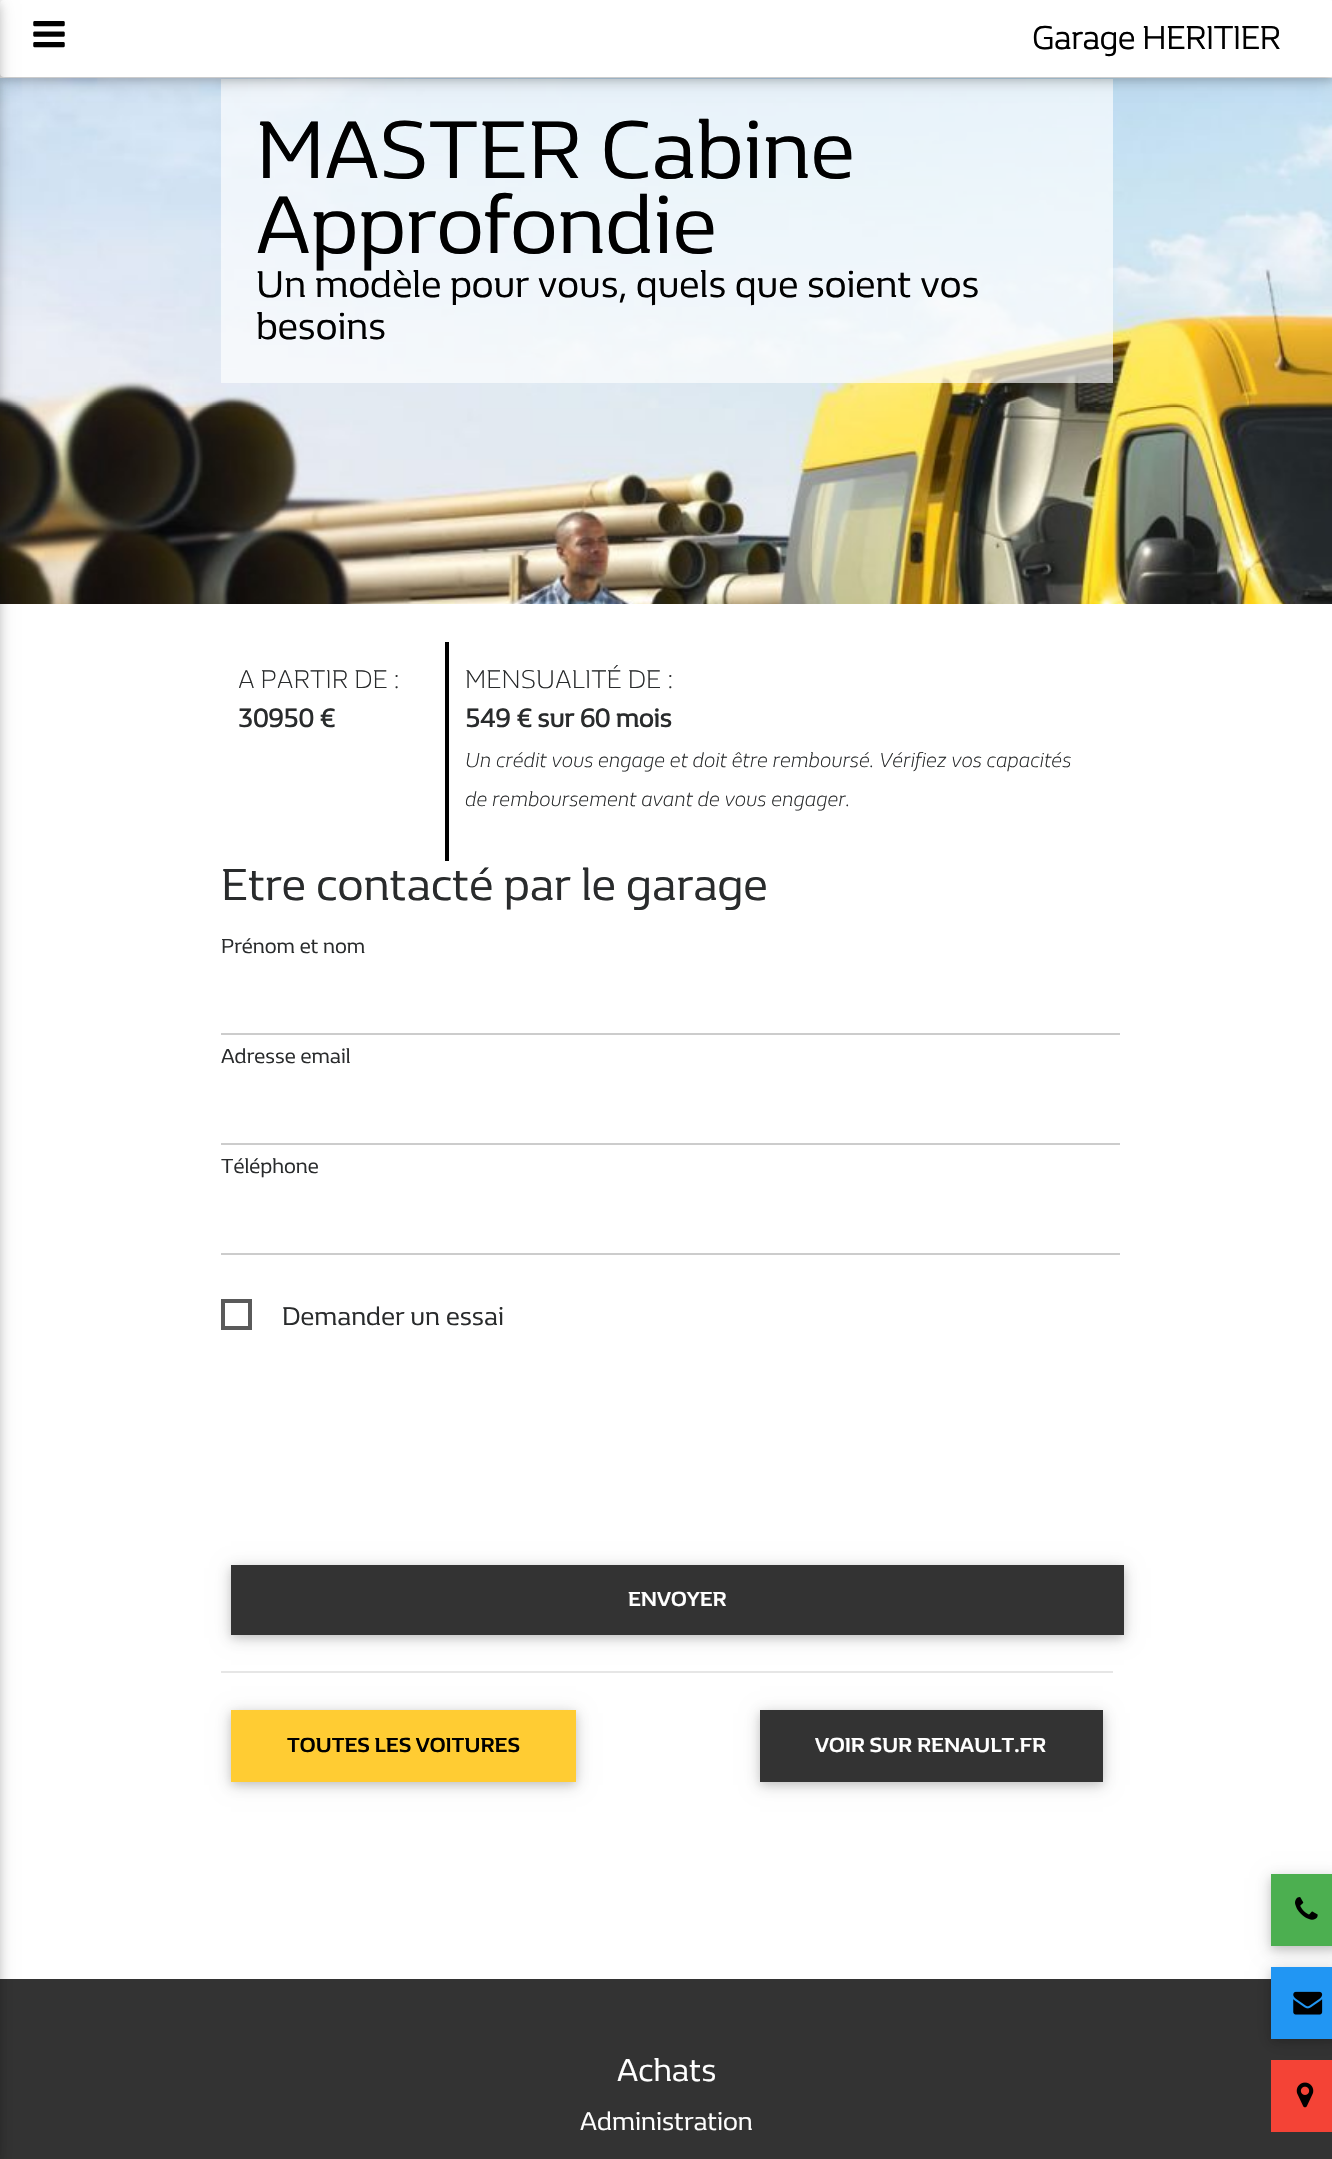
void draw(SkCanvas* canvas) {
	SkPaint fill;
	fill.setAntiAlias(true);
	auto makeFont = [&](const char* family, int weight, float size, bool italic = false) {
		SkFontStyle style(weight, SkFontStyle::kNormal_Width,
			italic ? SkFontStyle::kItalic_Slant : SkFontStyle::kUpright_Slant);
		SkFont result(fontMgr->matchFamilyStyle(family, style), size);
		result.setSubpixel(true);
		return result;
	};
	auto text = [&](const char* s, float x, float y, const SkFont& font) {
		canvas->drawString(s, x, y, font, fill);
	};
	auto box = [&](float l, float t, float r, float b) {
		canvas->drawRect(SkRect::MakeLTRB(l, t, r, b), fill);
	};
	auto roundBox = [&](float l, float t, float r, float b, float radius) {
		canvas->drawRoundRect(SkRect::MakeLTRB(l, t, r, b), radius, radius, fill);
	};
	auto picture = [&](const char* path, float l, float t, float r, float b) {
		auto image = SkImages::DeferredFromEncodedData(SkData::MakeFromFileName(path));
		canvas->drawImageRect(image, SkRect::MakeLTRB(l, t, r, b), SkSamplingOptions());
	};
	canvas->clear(0xFFFFFFFF);
	picture("image1.png", 0, 78, 1332, 604);
	fill.setColor(0xA6FFFFFF);
	box(221, 79, 1113, 383);
	fill.setColor(0x1F000000);
	fill.setMaskFilter(SkMaskFilter::MakeBlur(kNormal_SkBlurStyle, 9));
	canvas->drawRoundRect(SkRect::MakeLTRB(0, 4, 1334, 81), 4, 4, fill);
	fill.setMaskFilter(nullptr);
	fill.setColor(0x29000000);
	fill.setMaskFilter(SkMaskFilter::MakeBlur(kNormal_SkBlurStyle, 4.5f));
	canvas->drawRoundRect(SkRect::MakeLTRB(0, 4, 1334, 81), 4, 4, fill);
	fill.setMaskFilter(nullptr);
	fill.setColor(0xFFFFFFFF);
	roundBox(0, 0, 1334, 77, 4);
	fill.setColor(0xFF333333);
	box(0, 1979, 1332, 2159);
	fill.setColor(0x1F000000);
	fill.setMaskFilter(SkMaskFilter::MakeBlur(kNormal_SkBlurStyle, 9));
	canvas->drawRect(SkRect::MakeLTRB(-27, 4, 0, 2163), fill);
	fill.setMaskFilter(nullptr);
	fill.setColor(0x29000000);
	fill.setMaskFilter(SkMaskFilter::MakeBlur(kNormal_SkBlurStyle, 4.5f));
	canvas->drawRect(SkRect::MakeLTRB(-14, 4, 0, 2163), fill);
	fill.setMaskFilter(nullptr);
	picture("image0.png", 33, 21, 65, 48);
	fill.setColor(0xFF000000);
	box(445, 642, 449, 861);
	fill.setColor(0xFFCCCCCC);
	box(221, 1033, 1120, 1035);
	box(221, 1143, 1120, 1145);
	box(221, 1253, 1120, 1255);
	fill.setStyle(SkPaint::kStroke_Style);
	fill.setStrokeWidth(4);
	fill.setColor(0xFF5A5A5A);
	canvas->drawRect(SkRect::MakeLTRB(223, 1301, 250, 1328), fill);
	fill.setStyle(SkPaint::kFill_Style);
	fill.setColor(0x1F000000);
	fill.setMaskFilter(SkMaskFilter::MakeBlur(kNormal_SkBlurStyle, 9));
	canvas->drawRect(SkRect::MakeLTRB(231, 1568, 1124, 1638), fill);
	fill.setMaskFilter(nullptr);
	fill.setColor(0x29000000);
	fill.setMaskFilter(SkMaskFilter::MakeBlur(kNormal_SkBlurStyle, 4.5f));
	canvas->drawRect(SkRect::MakeLTRB(231, 1568, 1124, 1638), fill);
	fill.setMaskFilter(nullptr);
	fill.setColor(0xFF333333);
	box(231, 1565, 1124, 1635);
	fill.setColor(0xFFE6E6E6);
	box(221, 1671, 1113, 1673);
	fill.setColor(0x1F000000);
	fill.setMaskFilter(SkMaskFilter::MakeBlur(kNormal_SkBlurStyle, 9));
	canvas->drawRect(SkRect::MakeLTRB(231, 1713, 576, 1785), fill);
	fill.setMaskFilter(nullptr);
	fill.setColor(0x29000000);
	fill.setMaskFilter(SkMaskFilter::MakeBlur(kNormal_SkBlurStyle, 4.5f));
	canvas->drawRect(SkRect::MakeLTRB(231, 1713, 576, 1785), fill);
	fill.setMaskFilter(nullptr);
	fill.setColor(0xFFFFCC33);
	box(231, 1710, 576, 1782);
	fill.setColor(0x1F000000);
	fill.setMaskFilter(SkMaskFilter::MakeBlur(kNormal_SkBlurStyle, 9));
	canvas->drawRect(SkRect::MakeLTRB(760, 1713, 1103, 1785), fill);
	fill.setMaskFilter(nullptr);
	fill.setColor(0x29000000);
	fill.setMaskFilter(SkMaskFilter::MakeBlur(kNormal_SkBlurStyle, 4.5f));
	canvas->drawRect(SkRect::MakeLTRB(760, 1713, 1103, 1785), fill);
	fill.setMaskFilter(nullptr);
	fill.setColor(0xFF333333);
	box(760, 1710, 1103, 1782);
	fill.setColor(0x1F000000);
	fill.setMaskFilter(SkMaskFilter::MakeBlur(kNormal_SkBlurStyle, 9));
	canvas->drawRect(SkRect::MakeLTRB(1271, 1878, 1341, 1950), fill);
	fill.setMaskFilter(nullptr);
	fill.setColor(0x29000000);
	fill.setMaskFilter(SkMaskFilter::MakeBlur(kNormal_SkBlurStyle, 4.5f));
	canvas->drawRect(SkRect::MakeLTRB(1271, 1878, 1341, 1950), fill);
	fill.setMaskFilter(nullptr);
	fill.setColor(0xFF4CAF50);
	box(1271, 1874, 1332, 1946);
	picture("image2.png", 1295, 1897, 1318, 1920);
	fill.setColor(0x1F000000);
	fill.setMaskFilter(SkMaskFilter::MakeBlur(kNormal_SkBlurStyle, 9));
	canvas->drawRect(SkRect::MakeLTRB(1271, 1971, 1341, 2042), fill);
	fill.setMaskFilter(nullptr);
	fill.setColor(0x29000000);
	fill.setMaskFilter(SkMaskFilter::MakeBlur(kNormal_SkBlurStyle, 4.5f));
	canvas->drawRect(SkRect::MakeLTRB(1271, 1971, 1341, 2042), fill);
	fill.setMaskFilter(nullptr);
	fill.setColor(0xFF2196F3);
	box(1271, 1967, 1332, 2039);
	picture("image3.png", 1293, 1991, 1323, 2015);
	fill.setColor(0xFFF44336);
	box(1271, 2060, 1332, 2132);
	picture("image4.png", 1296, 2082, 1314, 2108);
	auto font1 = makeFont("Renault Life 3", 700, 32.75f);
	fill.setColor(0xFF000000);
	text("Garage HERITIER", 1032, 49, font1);
	auto font2 = makeFont("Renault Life", 400, 84);
	text("MASTER Cabine", 256, 178, font2);
	text("Approfondie", 256, 253, font2);
	auto font3 = makeFont("Renault Life", 400, 38.5f);
	text("Un modèle pour vous, quels que soient vos", 256, 297, font3);
	text("besoins", 256, 339, font3);
	auto font4 = makeFont("Renault Life", 300, 26.25f);
	fill.setColor(0xFF292B2C);
	text("A PARTIR DE :", 238, 688, font4);
	auto font5 = makeFont("Renault Life", 700, 26.25f);
	text("30950 €", 238, 727, font5);
	text("MENSUALITÉ DE :", 465, 688, font4);
	text("549 € sur 60 mois", 465, 727, font5);
	auto font6 = makeFont("Renault Life", 300, 21, true);
	text("Un crédit vous engage et doit être remboursé. Vérifiez vos capacités", 465, 767, font6);
	text("de remboursement avant de vous engager.", 465, 806, font6);
	auto font7 = makeFont("Renault Life", 400, 46);
	text("Etre contacté par le garage", 221, 900, font7);
	auto font8 = makeFont("Renault Life", 400, 21);
	text("Prénom et nom", 221, 953, font8);
	text("Adresse email", 221, 1063, font8);
	text("Téléphone", 221, 1173, font8);
	auto font9 = makeFont("Renault Life", 400, 26.25f);
	text("Demander un essai", 282, 1325, font9);
	auto font10 = makeFont("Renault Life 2", 700, 21);
	fill.setColor(0xFFFFFFFF);
	text("ENVOYER", 628, 1606, font10);
	fill.setColor(0xFF000000);
	text("TOUTES LES VOITURES", 287, 1752, font10);
	fill.setColor(0xFFFFFFFF);
	text("VOIR SUR RENAULT.FR", 815, 1752, font10);
	auto font11 = makeFont("Renault Life", 400, 32.75f);
	text("Achats", 617, 2081, font11);
	text("Administration", 580, 2130, font9);
}
